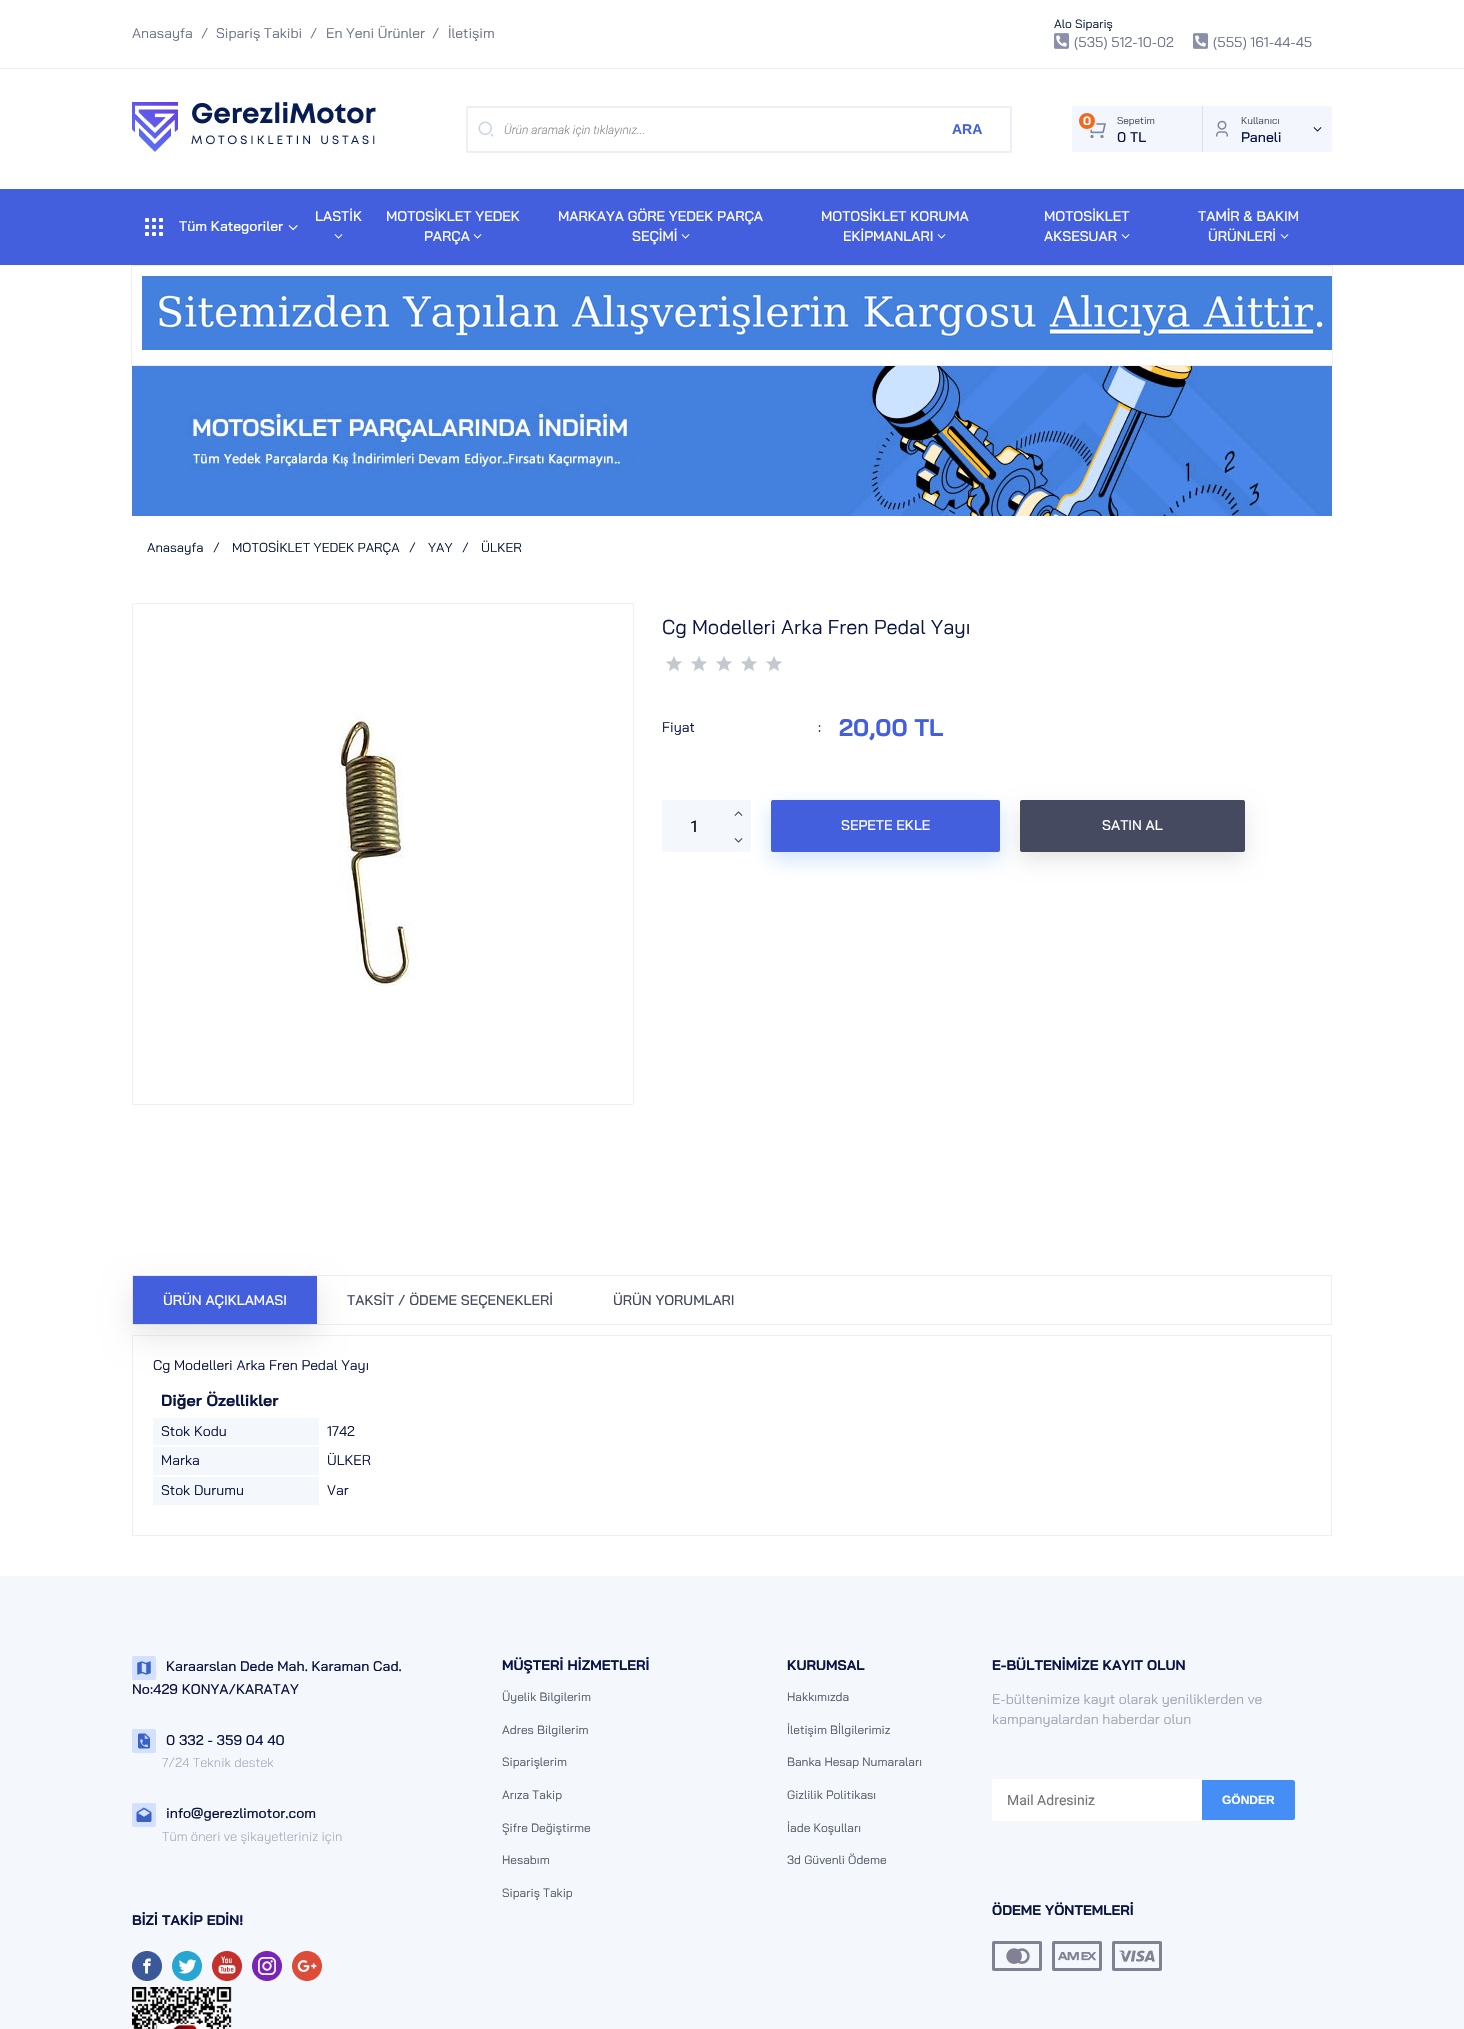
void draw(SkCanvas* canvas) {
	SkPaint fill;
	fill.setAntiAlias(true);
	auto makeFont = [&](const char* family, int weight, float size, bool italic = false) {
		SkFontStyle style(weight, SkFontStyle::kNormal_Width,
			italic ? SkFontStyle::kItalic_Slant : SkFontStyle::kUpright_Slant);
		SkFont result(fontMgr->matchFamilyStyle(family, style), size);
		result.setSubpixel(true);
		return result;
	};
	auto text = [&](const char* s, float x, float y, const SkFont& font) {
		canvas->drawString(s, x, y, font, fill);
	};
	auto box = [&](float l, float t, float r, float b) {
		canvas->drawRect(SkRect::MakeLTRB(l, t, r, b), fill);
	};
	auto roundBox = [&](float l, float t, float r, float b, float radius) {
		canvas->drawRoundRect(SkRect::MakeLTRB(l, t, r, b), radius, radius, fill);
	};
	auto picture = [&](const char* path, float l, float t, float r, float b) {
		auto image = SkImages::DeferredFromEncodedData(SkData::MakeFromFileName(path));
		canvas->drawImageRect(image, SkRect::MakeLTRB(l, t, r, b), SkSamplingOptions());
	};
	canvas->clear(0xFFFFFFFF);
	fill.setColor(0xFFECEFF6);
	box(0, 68, 1464, 69);
	picture("image0.png", 1054, 33, 1069, 49);
	picture("image0.png", 1193, 33, 1208, 49);
	picture("image1.png", 132, 102, 376, 152);
	fill.setStyle(SkPaint::kStroke_Style);
	fill.setStrokeWidth(2);
	canvas->drawRoundRect(SkRect::MakeLTRB(467, 107, 1011, 152), 1, 1, fill);
	picture("image2.png", 478, 121, 494, 137);
	fill.setStyle(SkPaint::kFill_Style);
	fill.setColor(0xFFF3F6FD);
	roundBox(1072, 106, 1332, 152, 2);
	picture("image3.png", 1090, 123, 1106, 139);
	fill.setColor(0xFFF1691D);
	canvas->drawCircle(1087, 121, 9, fill);
	fill.setStyle(SkPaint::kStroke_Style);
	fill.setColor(0xFFF3F6FD);
	canvas->drawCircle(1087, 121, 9, fill);
	fill.setStyle(SkPaint::kFill_Style);
	fill.setColor(0xFFDDE1E8);
	box(1202, 106, 1203, 152);
	picture("image4.png", 1216, 120, 1228, 137);
	picture("image5.png", 1313, 127, 1322, 132);
	fill.setColor(0xFF435FDD);
	box(0, 189, 1464, 265);
	picture("image6.png", 145, 218, 163, 236);
	picture("image7.png", 288, 225, 298, 231);
	picture("image8.png", 334, 234, 343, 239);
	picture("image8.png", 473, 234, 482, 239);
	picture("image8.png", 681, 234, 690, 239);
	picture("image8.png", 937, 234, 946, 239);
	picture("image8.png", 1121, 234, 1130, 239);
	picture("image8.png", 1280, 234, 1289, 239);
	fill.setStyle(SkPaint::kStroke_Style);
	fill.setStrokeWidth(1);
	fill.setColor(0xFFECEFF6);
	canvas->drawRoundRect(SkRect::MakeLTRB(131.5f, 265.5f, 1332.5f, 365.5f), 1.5f, 1.5f, fill);
	picture("image9.png", 142, 276, 1332, 350);
	picture("image10.png", 132, 366, 1332, 516);
	canvas->drawRoundRect(SkRect::MakeLTRB(132.5f, 603.5f, 633.5f, 1104.5f), 1.5f, 1.5f, fill);
	picture("image11.png", 339, 714, 419, 986);
	picture("image12.png", 666, 656, 782, 672);
	fill.setStyle(SkPaint::kFill_Style);
	fill.setColor(0xFFF4F7FC);
	canvas->drawPath(SkPathBuilder().moveTo(664, 800).lineTo(726, 800).lineTo(726, 852).lineTo(664, 852).cubicTo(663, 852, 662, 851, 662, 850).lineTo(662, 802).cubicTo(662, 801, 663, 800, 664, 800).close().detach(), fill);
	fill.setColor(0x40448EF6);
	fill.setMaskFilter(SkMaskFilter::MakeBlur(kNormal_SkBlurStyle, 10));
	canvas->drawRoundRect(SkRect::MakeLTRB(771, 808, 1000, 860), 2, 2, fill);
	fill.setMaskFilter(nullptr);
	fill.setColor(0xFFF4F7FC);
	canvas->drawPath(SkPathBuilder().moveTo(726, 800).lineTo(749, 800).cubicTo(750, 800, 751, 801, 751, 802).lineTo(751, 850).cubicTo(751, 851, 750, 852, 749, 852).lineTo(726, 852).close().detach(), fill);
	picture("image13.png", 734, 811, 743, 816);
	picture("image14.png", 734, 838, 743, 843);
	fill.setColor(0xFF435FDD);
	roundBox(771, 800, 1000, 852, 2);
	fill.setColor(0x1A000000);
	fill.setMaskFilter(SkMaskFilter::MakeBlur(kNormal_SkBlurStyle, 10));
	canvas->drawRoundRect(SkRect::MakeLTRB(1020, 808, 1245, 860), 2, 2, fill);
	fill.setMaskFilter(nullptr);
	fill.setColor(0xFF454A60);
	roundBox(1020, 800, 1245, 852, 2);
	fill.setStyle(SkPaint::kStroke_Style);
	fill.setColor(0xFFECEFF6);
	canvas->drawRect(SkRect::MakeLTRB(132.5f, 1275.5f, 1331.5f, 1324.5f), fill);
	canvas->drawRect(SkRect::MakeLTRB(132.5f, 1335.5f, 1331.5f, 1535.5f), fill);
	fill.setStyle(SkPaint::kFill_Style);
	fill.setColor(0x1A000000);
	fill.setMaskFilter(SkMaskFilter::MakeBlur(kNormal_SkBlurStyle, 15));
	canvas->drawRect(SkRect::MakeLTRB(133, 1288, 317, 1336), fill);
	fill.setMaskFilter(nullptr);
	fill.setColor(0xFF435FDD);
	box(133, 1276, 317, 1324);
	fill.setColor(0xFFF4F7FC);
	box(153, 1418, 319, 1445);
	box(153, 1447, 319, 1475);
	box(153, 1477, 319, 1505);
	box(0, 1576, 1464, 2029);
	picture("image15.png", 132, 1656, 156, 1680);
	picture("image16.png", 132, 1729, 156, 1753);
	picture("image17.png", 132, 1803, 156, 1827);
	picture("image18.png", 132, 1951, 162, 1981);
	picture("image19.png", 172, 1951, 202, 1981);
	picture("image20.png", 212, 1951, 242, 1981);
	picture("image21.png", 252, 1951, 282, 1981);
	picture("image22.png", 292, 1951, 322, 1981);
	fill.setColor(0xFFFFFFFF);
	canvas->drawPath(SkPathBuilder().moveTo(994, 1779).lineTo(1202, 1779).lineTo(1202, 1821).lineTo(994, 1821).cubicTo(993, 1821, 992, 1820, 992, 1819).lineTo(992, 1781).cubicTo(992, 1780, 993, 1779, 994, 1779).close().detach(), fill);
	fill.setColor(0xFF448EF6);
	canvas->drawPath(SkPathBuilder().moveTo(1202, 1780).lineTo(1293, 1780).cubicTo(1294, 1780, 1295, 1781, 1295, 1782).lineTo(1295, 1818).cubicTo(1295, 1819, 1294, 1820, 1293, 1820).lineTo(1202, 1820).close().detach(), fill);
	picture("image23.png", 992, 1941, 1162, 1971);
	picture("image24.png", 132, 1987, 232, 2029);
	auto font1 = makeFont("Bai Jamjuree", 400, 14);
	fill.setColor(0xFF6C7389);
	text("Anasayfa", 132, 38, font1);
	text("/", 201, 38, font1);
	text("Sipariş Takibi", 216, 38, font1);
	text("/", 310, 38, font1);
	text("En Yeni Ürünler", 326, 38, font1);
	text("/", 432, 38, font1);
	text("İletişim", 448, 38, font1);
	auto font2 = makeFont("Bai Jamjuree", 400, 12);
	fill.setColor(0xFF081938);
	text("Alo Sipariş", 1054, 28, font2);
	fill.setColor(0xFF6C7389);
	text("(535) 512-10-02", 1074, 47, font1);
	text("(555) 161-44-45", 1213, 47, font1);
	auto font3 = makeFont("Roboto", 300, 12, true);
	fill.setColor(0xFF868A92);
	text("Ürün aramak için tıklayınız...", 504, 134, font3);
	auto font4 = makeFont("Liberation Sans", 700, 14);
	fill.setColor(0xFF435FDD);
	text("ARA", 952, 134, font4);
	auto font5 = makeFont("Bai Jamjuree", 700, 12);
	fill.setColor(0xFFFFFFFF);
	text("0", 1083, 125, font5);
	auto font6 = makeFont("Bai Jamjuree", 500, 14);
	fill.setColor(0xFF0B1544);
	text("0 TL", 1117, 142, font6);
	auto font7 = makeFont("Bai Jamjuree", 400, 10);
	fill.setColor(0xFF454A60);
	text("Sepetim", 1117, 124, font7);
	text("Kullanıcı", 1241, 124, font7);
	fill.setColor(0xFF0B1544);
	text("Paneli", 1241, 142, font6);
	fill.setColor(0xFFFFFFFF);
	text("Tüm Kategoriler", 179, 231, font6);
	text("LASTİK", 315, 221, font6);
	text("MOTOSİKLET YEDEK", 386, 221, font6);
	text("PARÇA", 424, 241, font6);
	text("MARKAYA GÖRE YEDEK PARÇA", 558, 221, font6);
	text("SEÇİMİ", 632, 241, font6);
	text("MOTOSİKLET KORUMA", 821, 221, font6);
	text("EKİPMANLARI", 843, 241, font6);
	text("MOTOSİKLET", 1044, 221, font6);
	text("AKSESUAR", 1044, 241, font6);
	text("TAMİR & BAKIM", 1198, 221, font6);
	text("ÜRÜNLERİ", 1208, 241, font6);
	auto font8 = makeFont("Bai Jamjuree", 400, 13);
	fill.setColor(0xFF081938);
	text("Anasayfa", 147, 552, font8);
	fill.setColor(0xFF0B1544);
	text("/", 213, 552, font8);
	fill.setColor(0xFF081938);
	text("MOTOSİKLET YEDEK PARÇA", 232, 552, font8);
	fill.setColor(0xFF0B1544);
	text("/", 409, 552, font8);
	fill.setColor(0xFF081938);
	text("YAY", 428, 552, font8);
	fill.setColor(0xFF0B1544);
	text("/", 462, 552, font8);
	fill.setColor(0xFF081938);
	text("ÜLKER", 481, 552, font8);
	auto font9 = makeFont("Bai Jamjuree", 400, 20);
	fill.setColor(0xFF0B1544);
	text("Cg Modelleri Arka Fren Pedal Yayı", 662, 634, font9);
	text("Fiyat", 662, 732, font1);
	text(":", 818, 732, font1);
	auto font10 = makeFont("Bai Jamjuree", 700, 24);
	fill.setColor(0xFF435FDD);
	text("20,00 TL", 839, 736, font10);
	auto font11 = makeFont("Roboto", 400, 16);
	fill.setColor(0xFF000000);
	text("1", 690, 832, font11);
	fill.setColor(0xFFFFFFFF);
	text("SEPETE EKLE", 841, 830, font6);
	text("SATIN AL", 1102, 830, font6);
	text("ÜRÜN AÇIKLAMASI", 163, 1305, font6);
	fill.setColor(0xFF454A60);
	text("TAKSİT / ÖDEME SEÇENEKLERİ", 347, 1305, font6);
	text("ÜRÜN YORUMLARI", 613, 1305, font6);
	fill.setColor(0xFF0B1544);
	text("Cg Modelleri Arka Fren Pedal Yayı", 153, 1370, font1);
	auto font12 = makeFont("Bai Jamjuree", 700, 16);
	text("Diğer Özellikler", 161, 1406, font12);
	text("Stok Kodu", 161, 1436, font1);
	text("1742", 327, 1436, font1);
	text("Marka", 161, 1465, font1);
	text("ÜLKER", 327, 1465, font1);
	text("Stok Durumu", 161, 1495, font1);
	text("Var", 327, 1495, font1);
	text("Karaarslan Dede Mah. Karaman Cad.", 166, 1671, font6);
	text("No:429 KONYA/KARATAY", 132, 1694, font6);
	text("0 332 - 359 04 40", 166, 1745, font6);
	auto font13 = makeFont("Bai Jamjuree", 300, 13);
	fill.setColor(0xFFA3A7B5);
	text("7/24 Teknik destek", 162, 1767, font13);
	fill.setColor(0xFF0B1544);
	text("info@gerezlimotor.com", 166, 1818, font6);
	fill.setColor(0xFFA3A7B5);
	text("Tüm öneri ve şikayetleriniz için", 162, 1841, font13);
	auto font14 = makeFont("Bai Jamjuree", 700, 14);
	fill.setColor(0xFF0B1544);
	text("BİZİ TAKİP EDİN!", 132, 1925, font14);
	text("MÜŞTERİ HİZMETLERİ", 502, 1670, font14);
	fill.setColor(0xFF535C68);
	text("Üyelik Bilgilerim", 502, 1701, font2);
	text("Adres Bilgilerim", 502, 1734, font2);
	text("Siparişlerim", 502, 1766, font2);
	text("Arıza Takip", 502, 1799, font2);
	text("Şifre Değiştirme", 502, 1832, font2);
	text("Hesabım", 502, 1864, font2);
	text("Sipariş Takip", 502, 1897, font2);
	fill.setColor(0xFF0B1544);
	text("KURUMSAL", 787, 1670, font14);
	fill.setColor(0xFF535C68);
	text("Hakkımızda", 787, 1701, font2);
	text("İletişim Bİlgilerimiz", 787, 1734, font2);
	text("Banka Hesap Numaraları", 787, 1766, font2);
	text("Gizlilik Politikası", 787, 1799, font2);
	text("İade Koşulları", 787, 1832, font2);
	text("3d Güvenli Ödeme", 787, 1864, font2);
	fill.setColor(0xFF0B1544);
	text("E-BÜLTENİMİZE KAYIT OLUN", 992, 1670, font14);
	fill.setColor(0xFFA3A7B5);
	text("E-bültenimize kayıt olarak yeniliklerden ve", 992, 1704, font1);
	text("kampanyalardan haberdar olun", 992, 1724, font1);
	auto font15 = makeFont("Roboto", 400, 14);
	fill.setColor(0xFF757575);
	text("Mail Adresiniz", 1007, 1805, font15);
	auto font16 = makeFont("Liberation Sans", 700, 12);
	fill.setColor(0xFFFFFFFF);
	text("GÖNDER", 1222, 1804, font16);
	fill.setColor(0xFF0B1544);
	text("ÖDEME YÖNTEMLERİ", 992, 1915, font14);
}
